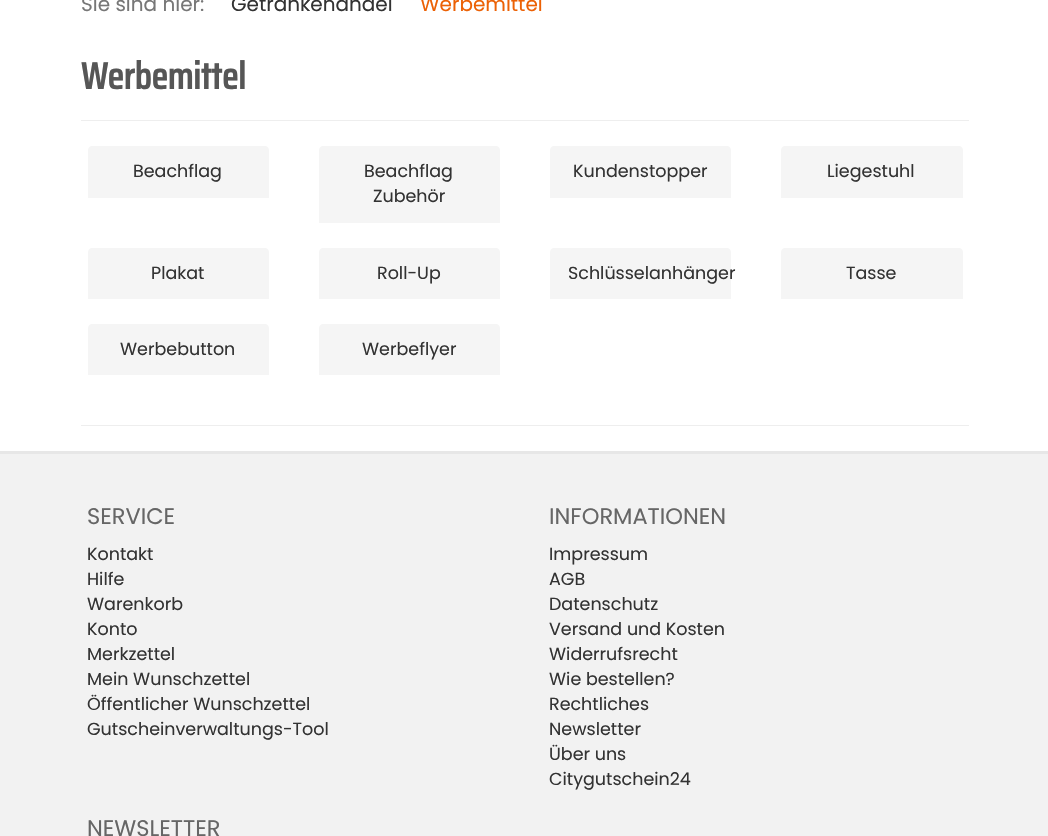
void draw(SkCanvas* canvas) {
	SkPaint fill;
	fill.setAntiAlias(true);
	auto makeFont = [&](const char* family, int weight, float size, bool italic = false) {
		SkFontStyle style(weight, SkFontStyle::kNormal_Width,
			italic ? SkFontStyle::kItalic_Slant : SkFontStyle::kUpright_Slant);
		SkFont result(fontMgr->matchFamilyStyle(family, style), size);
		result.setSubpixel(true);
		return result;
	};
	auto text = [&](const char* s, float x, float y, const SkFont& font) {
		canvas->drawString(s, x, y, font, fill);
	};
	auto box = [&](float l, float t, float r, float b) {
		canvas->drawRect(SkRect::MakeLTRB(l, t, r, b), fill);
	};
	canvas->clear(0xFFFFFFFF);
	fill.setColor(0xFFEEEEEE);
	box(81, 120, 969, 121);
	fill.setColor(0xFFF5F5F5);
	canvas->drawPath(SkPathBuilder().moveTo(92, 146).lineTo(265, 146).cubicTo(267, 146, 269, 148, 269, 150).lineTo(269, 198).lineTo(88, 198).lineTo(88, 150).cubicTo(88, 148, 90, 146, 92, 146).close().detach(), fill);
	canvas->drawPath(SkPathBuilder().moveTo(323, 146).lineTo(496, 146).cubicTo(498, 146, 500, 148, 500, 150).lineTo(500, 223).lineTo(319, 223).lineTo(319, 150).cubicTo(319, 148, 321, 146, 323, 146).close().detach(), fill);
	canvas->drawPath(SkPathBuilder().moveTo(554, 146).lineTo(727, 146).cubicTo(729, 146, 731, 148, 731, 150).lineTo(731, 198).lineTo(550, 198).lineTo(550, 150).cubicTo(550, 148, 552, 146, 554, 146).close().detach(), fill);
	canvas->drawPath(SkPathBuilder().moveTo(785, 146).lineTo(959, 146).cubicTo(961, 146, 963, 148, 963, 150).lineTo(963, 198).lineTo(781, 198).lineTo(781, 150).cubicTo(781, 148, 783, 146, 785, 146).close().detach(), fill);
	canvas->drawPath(SkPathBuilder().moveTo(92, 248).lineTo(265, 248).cubicTo(267, 248, 269, 250, 269, 252).lineTo(269, 299).lineTo(88, 299).lineTo(88, 252).cubicTo(88, 250, 90, 248, 92, 248).close().detach(), fill);
	canvas->drawPath(SkPathBuilder().moveTo(323, 248).lineTo(496, 248).cubicTo(498, 248, 500, 250, 500, 252).lineTo(500, 299).lineTo(319, 299).lineTo(319, 252).cubicTo(319, 250, 321, 248, 323, 248).close().detach(), fill);
	canvas->drawPath(SkPathBuilder().moveTo(554, 248).lineTo(727, 248).cubicTo(729, 248, 731, 250, 731, 252).lineTo(731, 299).lineTo(550, 299).lineTo(550, 252).cubicTo(550, 250, 552, 248, 554, 248).close().detach(), fill);
	canvas->drawPath(SkPathBuilder().moveTo(785, 248).lineTo(959, 248).cubicTo(961, 248, 963, 250, 963, 252).lineTo(963, 299).lineTo(781, 299).lineTo(781, 252).cubicTo(781, 250, 783, 248, 785, 248).close().detach(), fill);
	canvas->drawPath(SkPathBuilder().moveTo(92, 324).lineTo(265, 324).cubicTo(267, 324, 269, 326, 269, 328).lineTo(269, 375).lineTo(88, 375).lineTo(88, 328).cubicTo(88, 326, 90, 324, 92, 324).close().detach(), fill);
	canvas->drawPath(SkPathBuilder().moveTo(323, 324).lineTo(496, 324).cubicTo(498, 324, 500, 326, 500, 328).lineTo(500, 375).lineTo(319, 375).lineTo(319, 328).cubicTo(319, 326, 321, 324, 323, 324).close().detach(), fill);
	fill.setColor(0xFFEEEEEE);
	box(81, 425, 969, 426);
	fill.setColor(0xFFF2F2F2);
	box(0, 454, 1048, 836);
	fill.setColor(0xFFE7E7E7);
	box(0, 451, 1048, 454);
	auto font1 = makeFont("Poppins", 400, 20);
	fill.setColor(0xFF777777);
	text("Sie sind hier:", 81, 11, font1);
	fill.setColor(0xFF333333);
	text("Getränkehandel", 231, 11, font1);
	fill.setColor(0xFFEC6105);
	text("Werbemittel", 420, 11, font1);
	auto font2 = makeFont("Saira Condensed", 700, 37.5f);
	fill.setColor(0xFF565656);
	text("Werbemittel", 81, 89, font2);
	auto font3 = makeFont("Poppins", 400, 17.5f);
	fill.setColor(0xFF333333);
	text("Beachflag", 133, 177, font3);
	text("Beachflag", 364, 177, font3);
	text("Zubehör", 373, 202, font3);
	text("Kundenstopper", 573, 177, font3);
	text("Liegestuhl", 827, 177, font3);
	text("Plakat", 151, 279, font3);
	text("Roll-Up", 377, 279, font3);
	text("Schlüsselanhänger", 568, 279, font3);
	text("Tasse", 846, 279, font3);
	text("Werbebutton", 120, 355, font3);
	text("Werbeflyer", 362, 355, font3);
	auto font4 = makeFont("Poppins", 400, 22.5f);
	fill.setColor(0xFF666666);
	text("SERVICE", 87, 524, font4);
	fill.setColor(0xFF333333);
	text("Kontakt", 87, 560, font3);
	text("Hilfe", 87, 585, font3);
	text("Warenkorb", 87, 610, font3);
	text("Konto", 87, 635, font3);
	text("Merkzettel", 87, 660, font3);
	text("Mein Wunschzettel", 87, 685, font3);
	text("Öffentlicher Wunschzettel", 87, 710, font3);
	text("Gutscheinverwaltungs-Tool", 87, 735, font3);
	fill.setColor(0xFF666666);
	text("INFORMATIONEN", 549, 524, font4);
	fill.setColor(0xFF333333);
	text("Impressum", 549, 560, font3);
	text("AGB", 549, 585, font3);
	text("Datenschutz", 549, 610, font3);
	text("Versand und Kosten", 549, 635, font3);
	text("Widerrufsrecht", 549, 660, font3);
	text("Wie bestellen?", 549, 685, font3);
	text("Rechtliches", 549, 710, font3);
	text("Newsletter", 549, 735, font3);
	text("Über uns", 549, 760, font3);
	text("Citygutschein24", 549, 785, font3);
	fill.setColor(0xFF666666);
	text("NEWSLETTER", 87, 836, font4);
}
